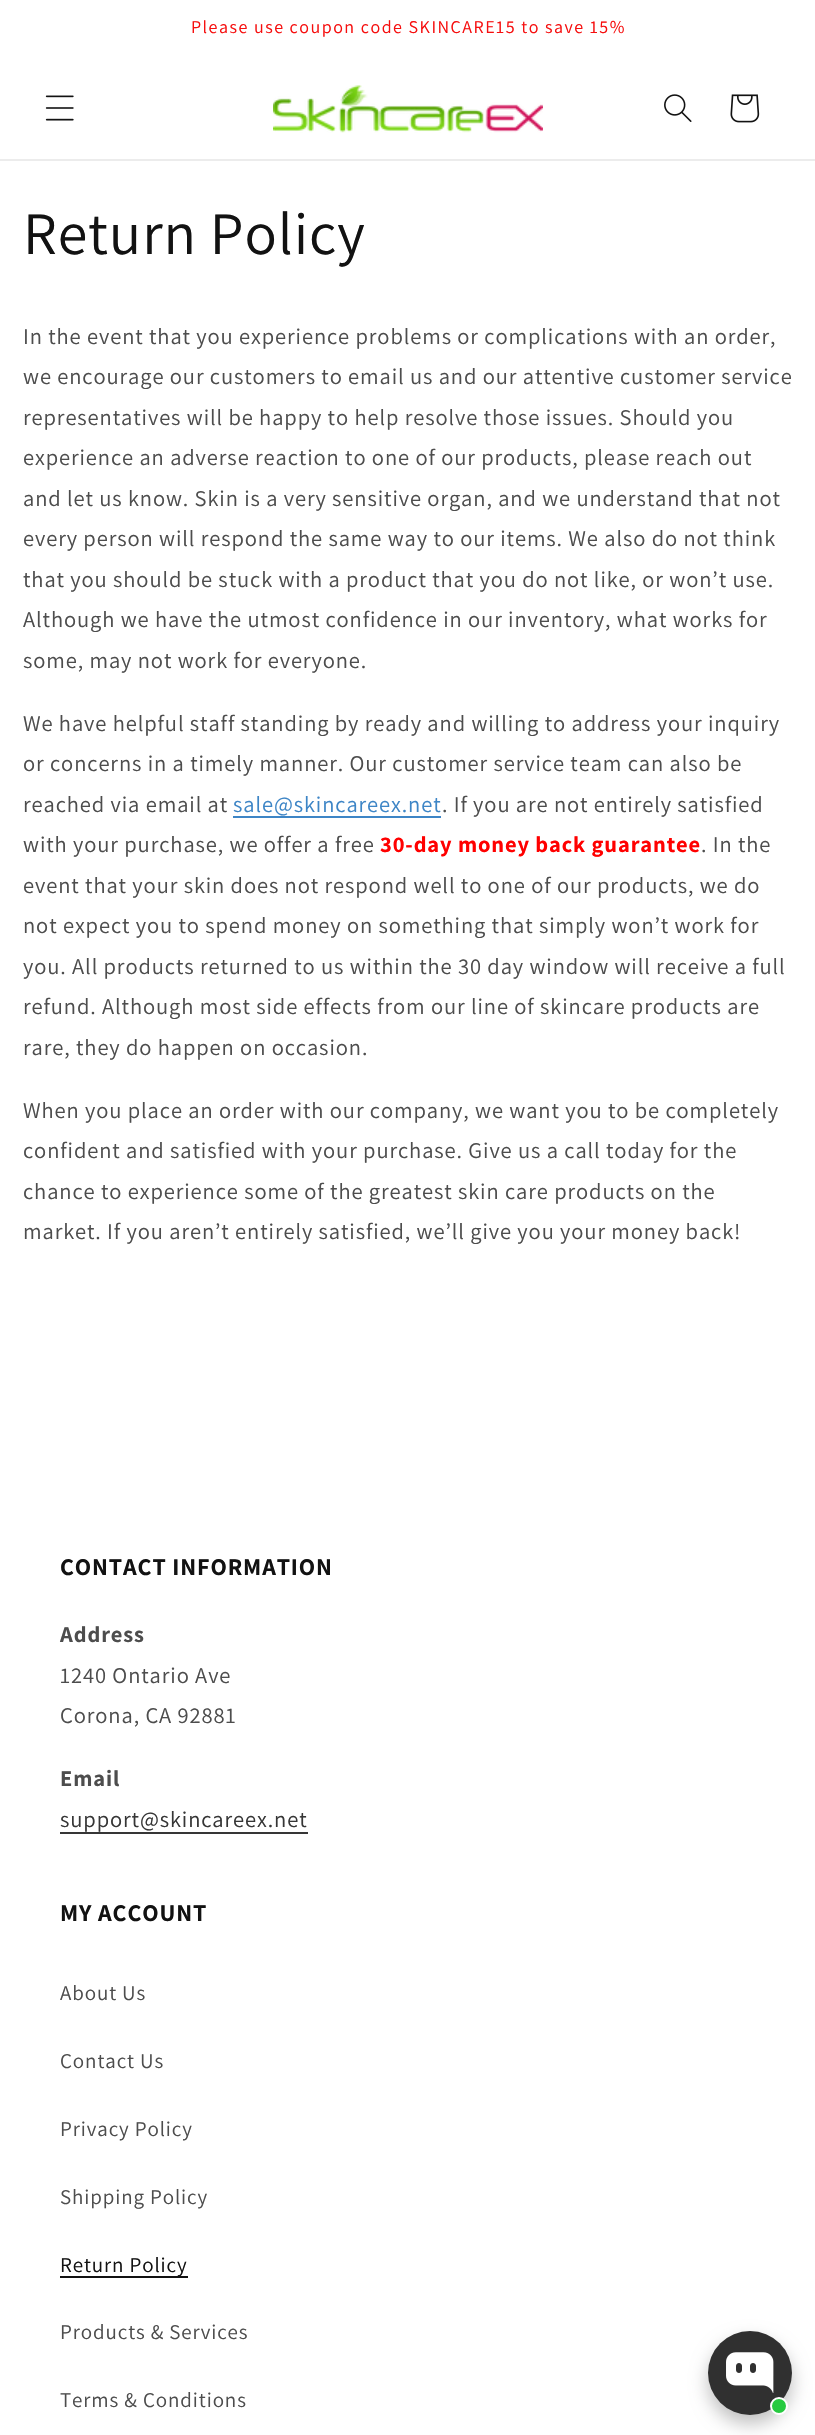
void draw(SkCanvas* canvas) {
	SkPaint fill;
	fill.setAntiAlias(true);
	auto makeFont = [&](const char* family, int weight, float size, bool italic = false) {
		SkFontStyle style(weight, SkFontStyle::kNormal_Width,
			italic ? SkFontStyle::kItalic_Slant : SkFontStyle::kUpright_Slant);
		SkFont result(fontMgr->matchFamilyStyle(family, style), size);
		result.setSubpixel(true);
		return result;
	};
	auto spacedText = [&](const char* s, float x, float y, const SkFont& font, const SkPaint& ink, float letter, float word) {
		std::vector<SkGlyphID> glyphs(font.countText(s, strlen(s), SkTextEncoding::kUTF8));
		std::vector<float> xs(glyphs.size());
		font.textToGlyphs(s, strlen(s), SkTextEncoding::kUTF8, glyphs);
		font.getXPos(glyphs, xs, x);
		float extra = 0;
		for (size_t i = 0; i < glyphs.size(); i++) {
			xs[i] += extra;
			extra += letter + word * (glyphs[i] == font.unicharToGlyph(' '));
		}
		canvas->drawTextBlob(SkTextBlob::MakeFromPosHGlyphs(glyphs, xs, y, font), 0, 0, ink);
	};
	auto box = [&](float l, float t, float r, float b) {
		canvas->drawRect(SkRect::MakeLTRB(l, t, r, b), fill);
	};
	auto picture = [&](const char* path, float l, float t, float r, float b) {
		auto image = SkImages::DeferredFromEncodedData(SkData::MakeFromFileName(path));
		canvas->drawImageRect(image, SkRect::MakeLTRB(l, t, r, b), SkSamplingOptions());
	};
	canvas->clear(0xFFFFFFFF);
	fill.setColor(0xFFECECEC);
	box(0, 159, 815, 161);
	picture("image0.png", 45, 95, 74, 121);
	picture("image1.png", 273, 85, 543, 133);
	picture("image2.png", 664, 94, 692, 122);
	picture("image3.png", 730, 94, 760, 123);
	fill.setColor(0xFF3D85C6);
	box(233, 816, 441, 818);
	fill.setColor(0xFF363636);
	box(60, 1832, 308, 1834);
	fill.setColor(0xFF121212);
	box(60, 2276, 188, 2278);
	fill.setColor(0x40000000);
	fill.setMaskFilter(SkMaskFilter::MakeBlur(kNormal_SkBlurStyle, 9));
	canvas->drawRoundRect(SkRect::MakeLTRB(708, 2340, 792, 2424), 42, 42, fill);
	fill.setMaskFilter(nullptr);
	fill.setColor(0xFF303030);
	canvas->drawCircle(750, 2373, 42, fill);
	picture("image4.png", 726, 2352, 774, 2393);
	fill.setColor(0xFF27CA40);
	canvas->drawCircle(779, 2406, 8, fill);
	fill.setStyle(SkPaint::kStroke_Style);
	fill.setStrokeWidth(2);
	fill.setColor(0xFFFFFFFF);
	canvas->drawCircle(779, 2406, 8, fill);
	auto font1 = makeFont("Assistant", 400, 18);
	fill.setStyle(SkPaint::kFill_Style);
	fill.setColor(0xFFF60E0E);
	spacedText("Please use coupon code SKINCARE15 to save 15%", 191, 33, font1, fill, 1.5f, 0);
	auto font2 = makeFont("Assistant", 400, 60);
	fill.setColor(0xFF121212);
	spacedText("Return Policy", 23, 254, font2, fill, 0.9f, 0);
	auto font3 = makeFont("Assistant", 400, 22.5f);
	fill.setColor(0xFF4D4D4D);
	spacedText("In the event that you experience problems or complications with an order,", 23, 344, font3, fill, 0.9f, 0);
	spacedText("we encourage our customers to email us and our attentive customer service", 23, 384, font3, fill, 0.9f, 0);
	spacedText("representatives will be happy to help resolve those issues. Should you", 23, 425, font3, fill, 0.9f, 0);
	spacedText("experience an adverse reaction to one of our products, please reach out", 23, 465, font3, fill, 0.9f, 0);
	spacedText("and let us know. Skin is a very sensitive organ, and we understand that not", 23, 506, font3, fill, 0.9f, 0);
	spacedText("every person will respond the same way to our items. We also do not think", 23, 546, font3, fill, 0.9f, 0);
	spacedText("that you should be stuck with a product that you do not like, or won’t use.", 23, 587, font3, fill, 0.9f, 0);
	spacedText("Although we have the utmost confidence in our inventory, what works for", 23, 627, font3, fill, 0.9f, 0);
	spacedText("some, may not work for everyone.", 23, 668, font3, fill, 0.9f, 0);
	spacedText("We have helpful staff standing by ready and willing to address your inquiry", 23, 731, font3, fill, 0.9f, 0);
	spacedText("or concerns in a timely manner. Our customer service team can also be", 23, 771, font3, fill, 0.9f, 0);
	spacedText("reached via email at", 23, 812, font3, fill, 0.9f, 0);
	fill.setColor(0xFF3D85C6);
	spacedText("sale@skincareex.net", 233, 812, font3, fill, 0.9f, 0);
	fill.setColor(0xFF4D4D4D);
	spacedText(". If you are not entirely satisfied", 442, 812, font3, fill, 0.9f, 0);
	spacedText("with your purchase, we offer a free", 23, 852, font3, fill, 0.9f, 0);
	auto font4 = makeFont("Assistant", 700, 22.5f);
	fill.setColor(0xFFFF0000);
	spacedText("30-day money back guarantee", 380, 852, font4, fill, 0.9f, 0);
	fill.setColor(0xFF4D4D4D);
	spacedText(". In the", 701, 852, font3, fill, 0.9f, 0);
	spacedText("event that your skin does not respond well to one of our products, we do", 23, 893, font3, fill, 0.9f, 0);
	spacedText("not expect you to spend money on something that simply won’t work for", 23, 933, font3, fill, 0.9f, 0);
	spacedText("you. All products returned to us within the 30 day window will receive a full", 23, 974, font3, fill, 0.9f, 0);
	spacedText("refund. Although most side effects from our line of skincare products are", 23, 1014, font3, fill, 0.9f, 0);
	spacedText("rare, they do happen on occasion.", 23, 1055, font3, fill, 0.9f, 0);
	spacedText("When you place an order with our company, we want you to be completely", 23, 1118, font3, fill, 0.9f, 0);
	spacedText("confident and satisfied with your purchase. Give us a call today for the", 23, 1158, font3, fill, 0.9f, 0);
	spacedText("chance to experience some of the greatest skin care products on the", 23, 1199, font3, fill, 0.9f, 0);
	spacedText("market. If you aren’t entirely satisfied, we’ll give you your money back!", 23, 1239, font3, fill, 0.9f, 0);
	auto font5 = makeFont("Assistant", 700, 24);
	fill.setColor(0xFF121212);
	spacedText("CONTACT INFORMATION", 60, 1575, font5, fill, 0.9f, 0);
	fill.setColor(0xFF4D4D4D);
	spacedText("Address", 60, 1642, font4, fill, 0.9f, 0);
	spacedText("1240 Ontario Ave", 60, 1683, font3, fill, 0.9f, 0);
	spacedText("Corona, CA 92881", 60, 1723, font3, fill, 0.9f, 0);
	spacedText("Email", 60, 1786, font4, fill, 0.9f, 0);
	fill.setColor(0xFF363636);
	spacedText("support@skincareex.net", 60, 1827, font3, fill, 0.9f, 0);
	fill.setColor(0xFF121212);
	spacedText("MY ACCOUNT", 60, 1921, font5, fill, 0.9f, 0);
	auto font6 = makeFont("Assistant", 400, 21);
	fill.setColor(0xFF4D4D4D);
	spacedText("About Us", 60, 2000, font6, fill, 0.9f, 0);
	spacedText("Contact Us", 60, 2068, font6, fill, 0.9f, 0);
	spacedText("Privacy Policy", 60, 2136, font6, fill, 0.9f, 0);
	spacedText("Shipping Policy", 60, 2204, font6, fill, 0.9f, 0);
	fill.setColor(0xFF121212);
	spacedText("Return Policy", 60, 2272, font6, fill, 0.9f, 0);
	fill.setColor(0xFF4D4D4D);
	spacedText("Products & Services", 60, 2339, font6, fill, 0.9f, 0);
	spacedText("Terms & Conditions", 60, 2407, font6, fill, 0.9f, 0);
}
